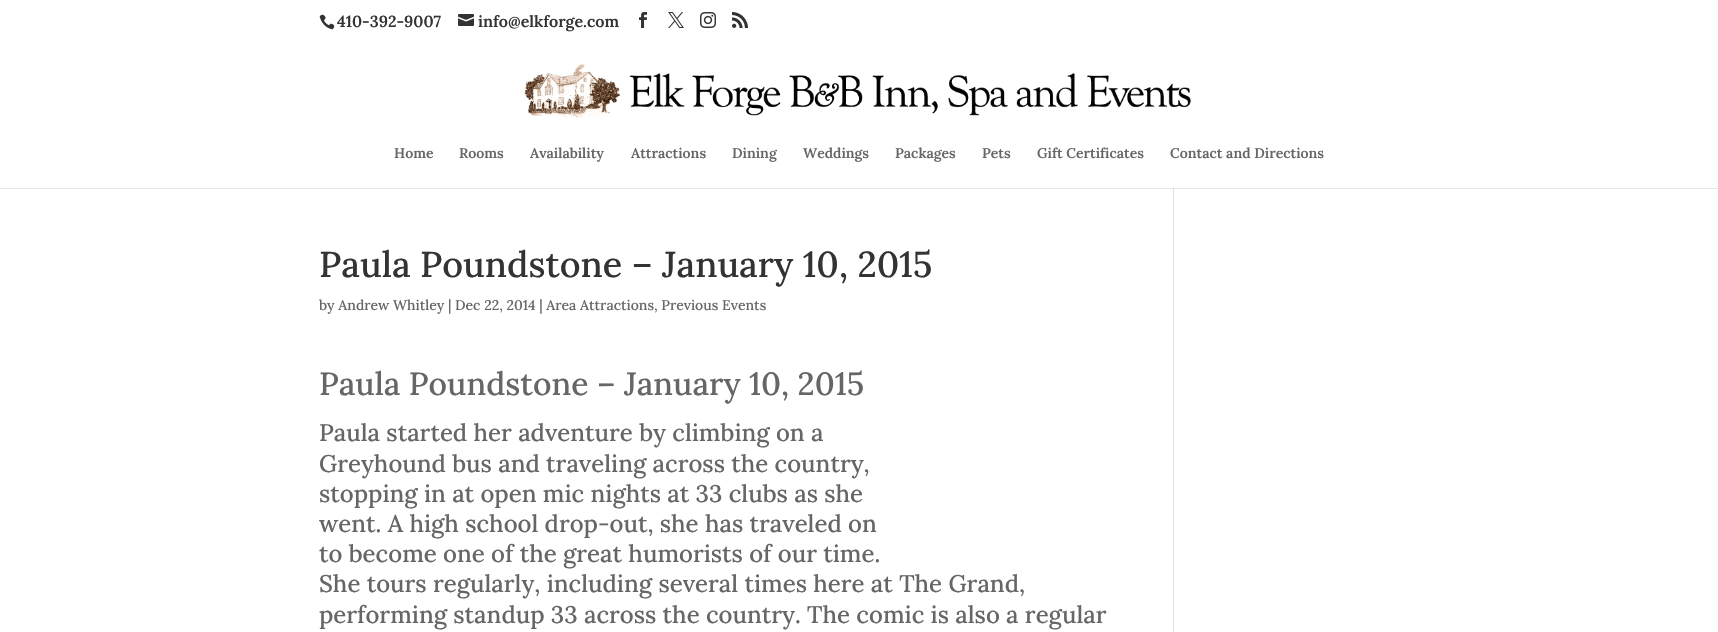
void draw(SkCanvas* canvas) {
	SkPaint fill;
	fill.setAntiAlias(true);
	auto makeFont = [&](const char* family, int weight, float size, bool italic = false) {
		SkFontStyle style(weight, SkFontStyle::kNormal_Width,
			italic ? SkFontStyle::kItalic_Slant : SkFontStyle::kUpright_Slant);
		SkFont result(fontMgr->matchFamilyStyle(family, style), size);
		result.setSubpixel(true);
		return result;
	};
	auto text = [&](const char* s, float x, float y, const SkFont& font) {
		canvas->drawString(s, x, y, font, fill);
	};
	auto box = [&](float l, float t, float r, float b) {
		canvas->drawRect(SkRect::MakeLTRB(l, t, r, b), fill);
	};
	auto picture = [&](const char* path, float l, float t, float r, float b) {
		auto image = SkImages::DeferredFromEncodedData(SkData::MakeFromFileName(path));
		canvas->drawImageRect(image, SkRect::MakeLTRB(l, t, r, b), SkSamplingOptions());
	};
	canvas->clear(0xFFFFFFFF);
	fill.setColor(0xFFE6E6E6);
	box(0, 188, 1718, 189);
	picture("image0.png", 319, 14, 335, 30);
	picture("image1.png", 458, 14, 474, 26);
	picture("image2.png", 639, 12, 647, 28);
	picture("image3.png", 668, 12, 684, 28);
	picture("image4.png", 700, 12, 716, 28);
	picture("image5.png", 732, 12, 748, 28);
	picture("image6.png", 524, 64, 1191, 118);
	fill.setColor(0xFFE2E2E2);
	box(1173, 188, 1174, 632);
	fill.setColor(0xFFCBCBCB);
	box(1173, 188, 1174, 189);
	auto font1 = makeFont("Lora", 600, 16);
	fill.setColor(0xFF333333);
	text("410-392-9007", 337, 27, font1);
	text("info@elkforge.com", 478, 27, font1);
	auto font2 = makeFont("Lora", 600, 14);
	fill.setColor(0xFF666666);
	text("Home", 394, 158, font2);
	text("Rooms", 459, 158, font2);
	text("Availability", 530, 158, font2);
	text("Attractions", 631, 158, font2);
	text("Dining", 732, 158, font2);
	text("Weddings", 803, 158, font2);
	text("Packages", 895, 158, font2);
	text("Pets", 982, 158, font2);
	text("Gift Certificates", 1037, 158, font2);
	text("Contact and Directions", 1170, 158, font2);
	auto font3 = makeFont("Lora", 500, 36);
	fill.setColor(0xFF333333);
	text("Paula Poundstone – January 10, 2015", 319, 277, font3);
	auto font4 = makeFont("Lora", 500, 14);
	fill.setColor(0xFF666666);
	text("by Andrew Whitley | Dec 22, 2014 | Area Attractions, Previous Events", 319, 310, font4);
	auto font5 = makeFont("Lora", 500, 32);
	text("Paula Poundstone – January 10, 2015", 319, 395, font5);
	auto font6 = makeFont("Lora", 500, 24);
	text("Paula started her adventure by climbing on a", 319, 441, font6);
	text("Greyhound bus and traveling across the country,", 319, 472, font6);
	text("stopping in at open mic nights at 33 clubs as she", 319, 502, font6);
	text("went. A high school drop-out, she has traveled on", 319, 532, font6);
	text("to become one of the great humorists of our time.", 319, 562, font6);
	text("She tours regularly, including several times here at The Grand,", 319, 592, font6);
	text("performing standup 33 across the country. The comic is also a regular", 319, 623, font6);
}
